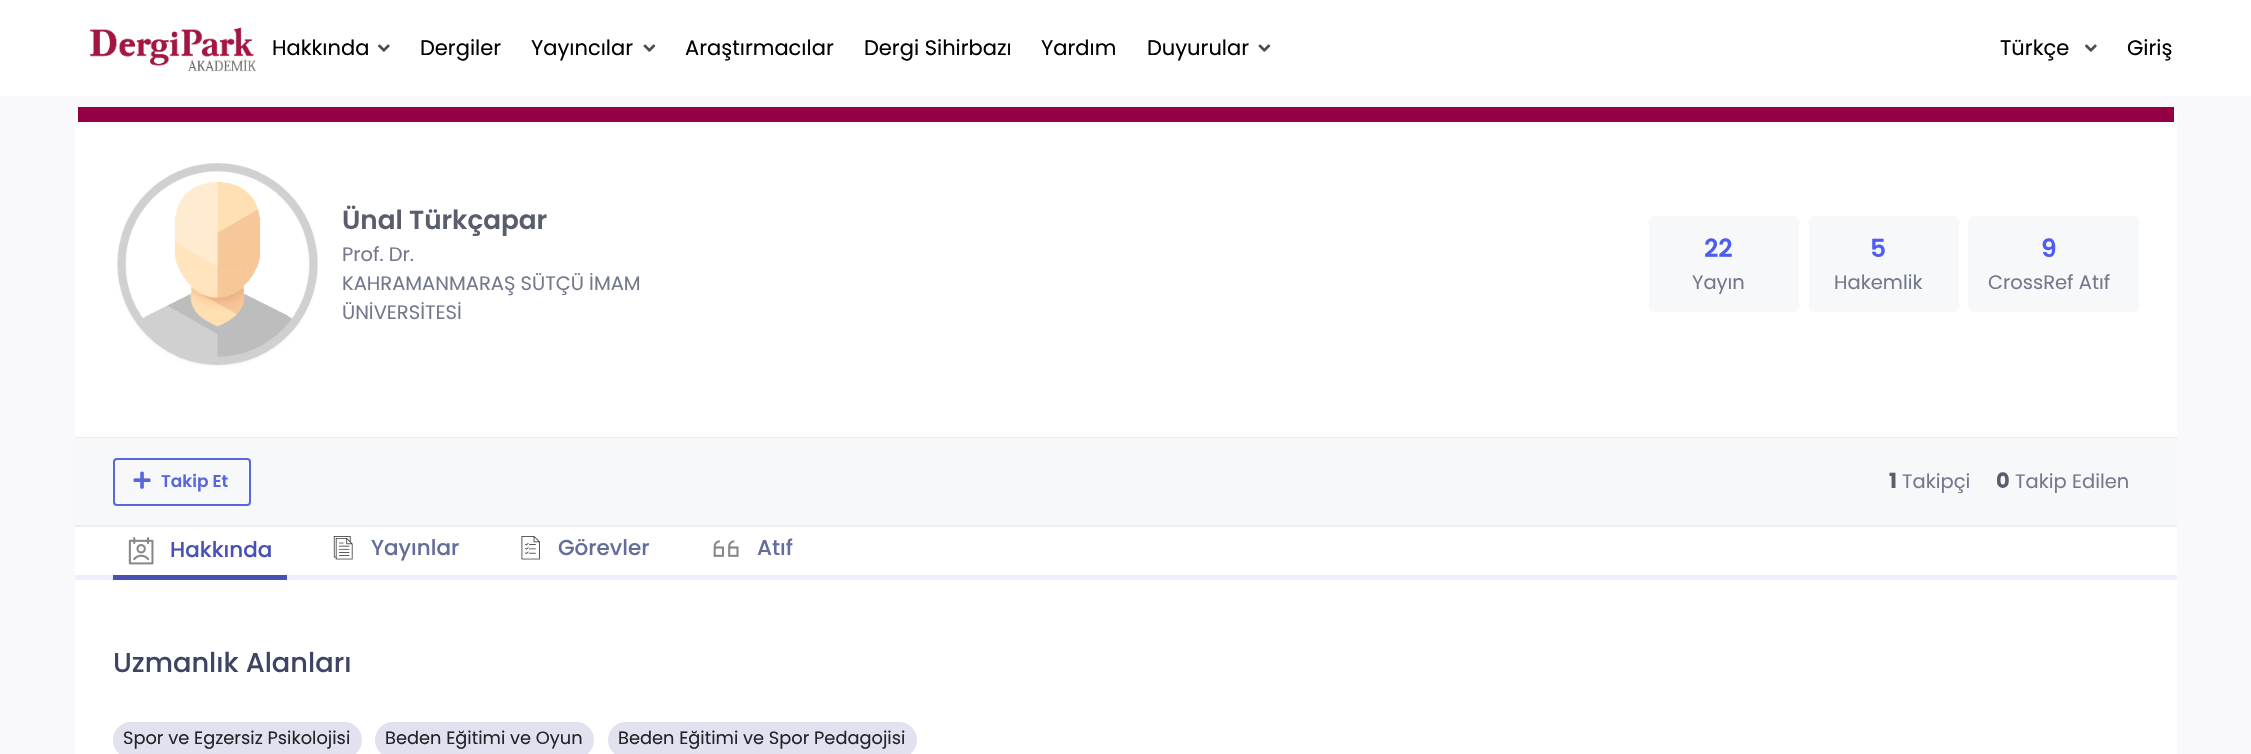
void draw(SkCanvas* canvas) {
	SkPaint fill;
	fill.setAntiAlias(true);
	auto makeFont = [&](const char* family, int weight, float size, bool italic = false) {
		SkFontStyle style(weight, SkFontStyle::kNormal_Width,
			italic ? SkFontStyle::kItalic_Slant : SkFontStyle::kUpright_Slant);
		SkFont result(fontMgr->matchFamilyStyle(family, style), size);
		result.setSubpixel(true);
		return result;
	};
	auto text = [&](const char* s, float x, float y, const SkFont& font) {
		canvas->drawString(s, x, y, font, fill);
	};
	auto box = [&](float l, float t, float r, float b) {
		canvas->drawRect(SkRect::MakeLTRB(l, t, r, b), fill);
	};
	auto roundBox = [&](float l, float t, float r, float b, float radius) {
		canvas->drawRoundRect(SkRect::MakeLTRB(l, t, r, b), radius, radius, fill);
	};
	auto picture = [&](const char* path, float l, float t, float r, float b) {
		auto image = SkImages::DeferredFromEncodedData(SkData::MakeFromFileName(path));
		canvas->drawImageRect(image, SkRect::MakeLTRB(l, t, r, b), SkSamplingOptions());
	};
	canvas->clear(0xFFF9F9FC);
	fill.setColor(0xFFFFFFFF);
	box(0, 0, 2251, 96);
	picture("image0.png", 89, 27, 257, 72);
	picture("image1.png", 378, 44, 390, 52);
	picture("image2.png", 643, 44, 656, 52);
	picture("image2.png", 1258, 44, 1271, 52);
	picture("image1.png", 2085, 44, 2097, 52);
	roundBox(75, 107, 2177, 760, 6);
	fill.setColor(0xFF940043);
	box(78, 107, 2174, 122);
	picture("image3.png", 117, 163, 318, 366);
	fill.setColor(0xFFF7F8FA);
	roundBox(1649, 216, 1799, 312, 6);
	roundBox(1809, 216, 1959, 312, 6);
	roundBox(1968, 216, 2139, 312, 6);
	fill.setColor(0xFFEBEDF2);
	box(75, 437, 2177, 438);
	fill.setColor(0xFFF7F8FA);
	box(75, 438, 2177, 525);
	fill.setStyle(SkPaint::kStroke_Style);
	fill.setStrokeWidth(2);
	fill.setColor(0xFF5867DD);
	canvas->drawRoundRect(SkRect::MakeLTRB(114, 459, 250, 505), 3, 3, fill);
	picture("image4.png", 133, 471, 151, 489);
	fill.setStyle(SkPaint::kFill_Style);
	fill.setColor(0xFFEBEDF2);
	box(75, 525, 2177, 527);
	fill.setColor(0x1A4D5CF2);
	box(75, 575, 2177, 580);
	fill.setColor(0xFF4751B5);
	box(113, 575, 287, 580);
	picture("image5.png", 128, 537, 154, 565);
	picture("image6.png", 333, 536, 353, 560);
	picture("image7.png", 521, 536, 540, 560);
	picture("image8.png", 713, 540, 739, 557);
	fill.setColor(0xFFE1E1EF);
	roundBox(113, 722, 362, 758, 18);
	roundBox(375, 722, 594, 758, 18);
	roundBox(608, 722, 917, 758, 18);
	auto font1 = makeFont("Poppins", 400, 21);
	fill.setColor(0xFF000000);
	text("Hakkında", 272, 55, font1);
	text("Dergiler", 420, 55, font1);
	text("Yayıncılar", 531, 55, font1);
	text("Araştırmacılar", 685, 55, font1);
	text("Dergi Sihirbazı", 864, 55, font1);
	text("Yardım", 1041, 55, font1);
	text("Duyurular", 1147, 55, font1);
	text("Türkçe", 2000, 55, font1);
	text("Giriş", 2127, 55, font1);
	auto font2 = makeFont("Poppins", 600, 26.25f);
	fill.setColor(0xFF595D6E);
	text("Ünal Türkçapar", 342, 229, font2);
	auto font3 = makeFont("Poppins", 400, 19.5f);
	fill.setColor(0xFF74788D);
	text("Prof. Dr.", 342, 261, font3);
	text("KAHRAMANMARAŞ SÜTÇÜ İMAM", 342, 290, font3);
	text("ÜNİVERSİTESİ", 342, 319, font3);
	auto font4 = makeFont("Poppins", 600, 25);
	fill.setColor(0xFF4D5CF2);
	text("22", 1704, 257, font4);
	fill.setColor(0xFF74788D);
	text("Yayın", 1692, 289, font3);
	fill.setColor(0xFF4D5CF2);
	text("5", 1870, 257, font4);
	fill.setColor(0xFF74788D);
	text("Hakemlik", 1834, 289, font3);
	fill.setColor(0xFF4D5CF2);
	text("9", 2041, 257, font4);
	fill.setColor(0xFF74788D);
	text("CrossRef Atıf", 1988, 289, font3);
	auto font5 = makeFont("Poppins", 600, 17);
	fill.setColor(0xFF5867DD);
	text("Takip Et", 161, 487, font5);
	auto font6 = makeFont("Poppins", 700, 21);
	fill.setColor(0xFF595D6E);
	text("1", 1889, 488, font6);
	fill.setColor(0xFF74788D);
	text("Takipçi", 1902, 488, font3);
	fill.setColor(0xFF595D6E);
	text("0", 1996, 488, font6);
	fill.setColor(0xFF74788D);
	text("Takip Edilen", 2015, 488, font3);
	auto font7 = makeFont("Poppins", 500, 21.5f);
	fill.setColor(0xFF4751B5);
	text("Hakkında", 170, 557, font7);
	fill.setColor(0xFF646C9A);
	text("Yayınlar", 371, 555, font7);
	text("Görevler", 558, 555, font7);
	text("Atıf", 757, 555, font7);
	auto font8 = makeFont("Poppins", 500, 27.25f);
	fill.setColor(0xFF3D4465);
	text("Uzmanlık Alanları", 113, 672, font8);
	auto font9 = makeFont("Poppins", 400, 17.8f);
	fill.setColor(0xFF212529);
	text("Spor ve Egzersiz Psikolojisi", 123, 744, font9);
	text("Beden Eğitimi ve Oyun", 385, 744, font9);
	text("Beden Eğitimi ve Spor Pedagojisi", 618, 744, font9);
}
